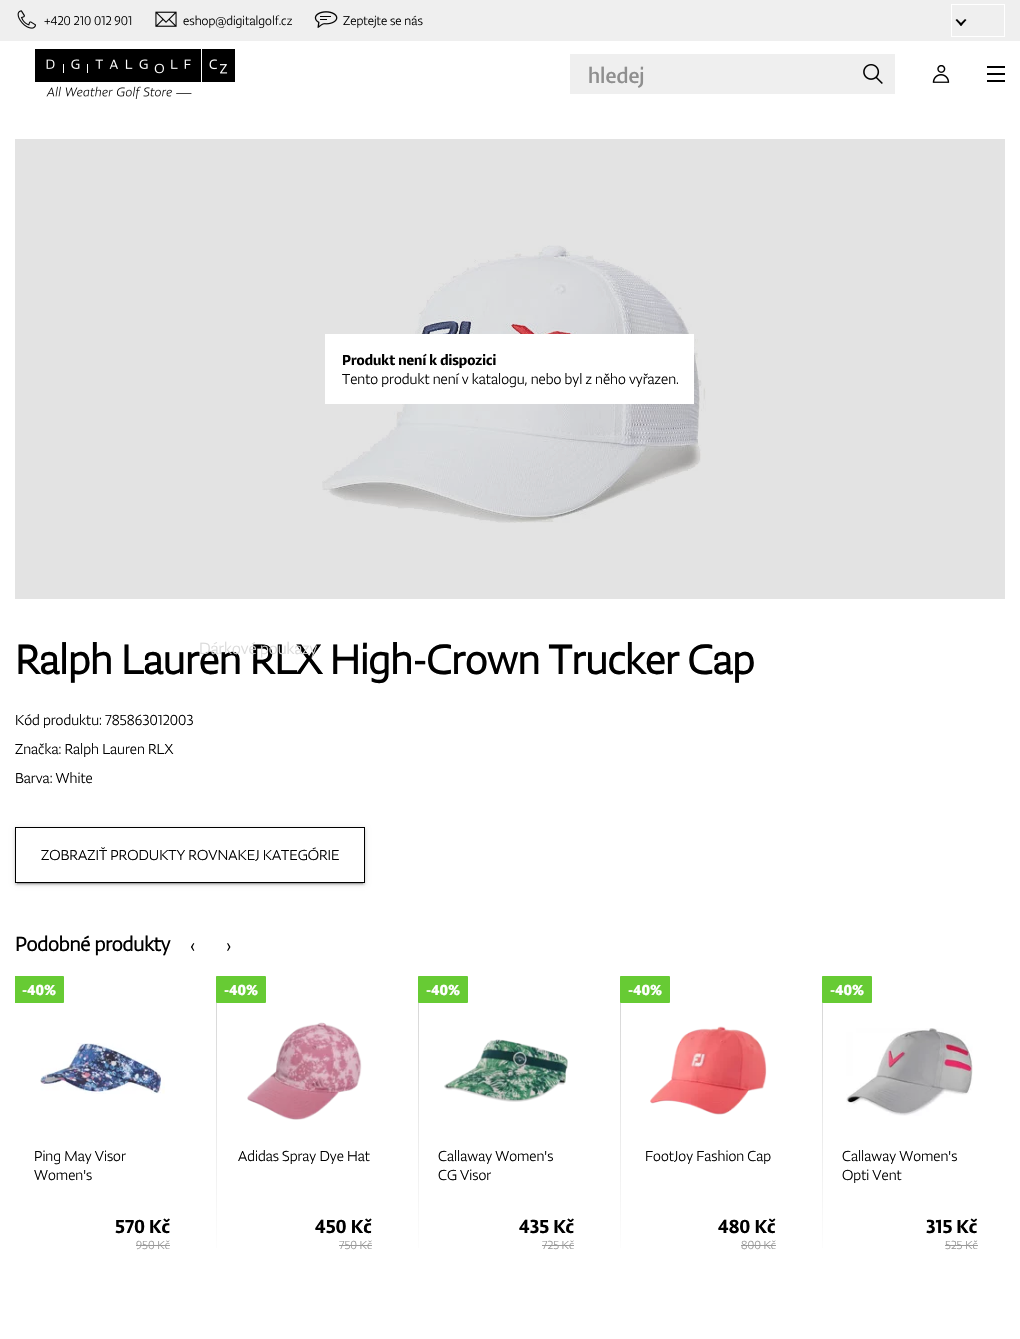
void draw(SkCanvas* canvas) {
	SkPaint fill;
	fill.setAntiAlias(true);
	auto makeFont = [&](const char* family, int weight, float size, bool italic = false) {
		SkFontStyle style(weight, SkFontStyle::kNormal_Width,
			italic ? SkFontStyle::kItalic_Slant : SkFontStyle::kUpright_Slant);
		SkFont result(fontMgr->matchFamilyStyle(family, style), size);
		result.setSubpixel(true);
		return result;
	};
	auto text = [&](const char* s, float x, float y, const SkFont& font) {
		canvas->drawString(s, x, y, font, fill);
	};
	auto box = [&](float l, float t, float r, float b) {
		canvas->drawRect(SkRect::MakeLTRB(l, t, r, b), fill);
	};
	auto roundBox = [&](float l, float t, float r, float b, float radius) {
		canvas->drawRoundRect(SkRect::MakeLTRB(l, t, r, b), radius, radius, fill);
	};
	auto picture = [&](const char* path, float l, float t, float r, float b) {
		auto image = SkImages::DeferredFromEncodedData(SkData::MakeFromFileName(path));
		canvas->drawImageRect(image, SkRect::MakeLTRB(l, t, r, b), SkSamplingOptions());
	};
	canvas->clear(0xFFFFFFFF);
	fill.setColor(0xFFE3E3E3);
	box(15, 139, 1005, 599);
	fill.setColor(0xFFEFEFEF);
	box(0, 0, 1020, 41);
	picture("image0.png", 17, 10, 36, 29);
	picture("image1.png", 155, 11, 177, 27);
	picture("image2.png", 314, 11, 338, 28);
	fill.setStyle(SkPaint::kStroke_Style);
	fill.setStrokeWidth(1);
	fill.setColor(0xFFFFFFFF);
	canvas->drawRect(SkRect::MakeLTRB(951.5f, 4.5f, 1004.5f, 36.5f), fill);
	fill.setStyle(SkPaint::kFill_Style);
	fill.setColor(0xFF000000);
	canvas->drawPath(SkPathBuilder().moveTo(965, 19).lineTo(966.5f, 20).lineTo(961, 26).lineTo(959.5f, 24.5f).close().detach(), fill);
	canvas->drawPath(SkPathBuilder().moveTo(957, 19).lineTo(962.5f, 24.5f).lineTo(961, 26).lineTo(955.5f, 20).close().detach(), fill);
	picture("image3.png", 35, 49, 235, 99);
	fill.setColor(0xFFEFEFEF);
	box(570, 54, 895, 94);
	picture("image4.png", 863, 64, 883, 84);
	picture("image5.png", 932, 65, 950, 83);
	fill.setColor(0xFF000000);
	box(987, 73, 1005, 75);
	box(987, 66, 1005, 68);
	box(987, 80, 1005, 82);
	picture("image6.png", 322, 245, 706, 523);
	fill.setColor(0xFFFFFFFF);
	box(325, 334, 694, 404);
	canvas->save();
	canvas->clipPath(SkPathBuilder(SkPathFillType::kEvenOdd).moveTo(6, 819).lineTo(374, 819).lineTo(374, 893).lineTo(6, 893).close().moveTo(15, 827).lineTo(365, 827).lineTo(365, 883).lineTo(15, 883).close().detach(), true);
	fill.setColor(0x1F000000);
	fill.setMaskFilter(SkMaskFilter::MakeBlur(kNormal_SkBlurStyle, 2.5f));
	canvas->drawRect(SkRect::MakeLTRB(15, 828, 365, 884), fill);
	fill.setMaskFilter(nullptr);
	canvas->restore();
	canvas->save();
	canvas->clipPath(SkPathBuilder(SkPathFillType::kEvenOdd).moveTo(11, 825).lineTo(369, 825).lineTo(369, 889).lineTo(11, 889).close().moveTo(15, 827).lineTo(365, 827).lineTo(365, 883).lineTo(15, 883).close().detach(), true);
	fill.setColor(0x24000000);
	fill.setMaskFilter(SkMaskFilter::MakeBlur(kNormal_SkBlurStyle, 1));
	canvas->drawRect(SkRect::MakeLTRB(15, 829, 365, 885), fill);
	fill.setMaskFilter(nullptr);
	canvas->restore();
	canvas->save();
	canvas->clipRect(SkRect::MakeLTRB(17, 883, 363, 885));
	fill.setColor(0x33000000);
	fill.setMaskFilter(SkMaskFilter::MakeBlur(kNormal_SkBlurStyle, 0.5f));
	canvas->drawRect(SkRect::MakeLTRB(17, 832, 363, 884), fill);
	fill.setMaskFilter(nullptr);
	canvas->restore();
	fill.setStyle(SkPaint::kStroke_Style);
	fill.setColor(0xFF000000);
	canvas->drawRect(SkRect::MakeLTRB(15.5f, 827.5f, 364.5f, 882.5f), fill);
	fill.setStyle(SkPaint::kFill_Style);
	fill.setColor(0xFF67CB34);
	canvas->drawPath(SkPathBuilder().moveTo(15, 976).lineTo(63, 976).cubicTo(63.5f, 976, 64, 976.5f, 64, 977).lineTo(64, 1002).cubicTo(64, 1002.5f, 63.5f, 1003, 63, 1003).lineTo(15, 1003).close().detach(), fill);
	picture("image7.png", 40, 1043, 165, 1094);
	fill.setColor(0xFF999999);
	box(136, 1245, 170, 1246);
	{
		const SkColor colors[] = {0xFFD3D3D3, 0xFFFFFFFF};
		const float stops[] = {0, 1};
		const SkPoint ends[] = {{217, 976}, {217, 1264}};
		fill.setShader(SkGradientShader::MakeLinear(ends, colors, stops, 2, SkTileMode::kClamp));
		fill.setAlpha(255);
	}
	box(216, 976, 217, 1248);
	fill.setShader(nullptr);
	fill.setColor(0xFF67CB34);
	roundBox(216, 976, 266, 1003, 1);
	picture("image8.png", 247, 1022, 362, 1120);
	fill.setColor(0xFF999999);
	box(339, 1245, 372, 1246);
	{
		const SkColor colors[] = {0xFFD3D3D3, 0xFFFFFFFF};
		const float stops[] = {0, 1};
		const SkPoint ends[] = {{419, 976}, {419, 1264}};
		fill.setShader(SkGradientShader::MakeLinear(ends, colors, stops, 2, SkTileMode::kClamp));
		fill.setAlpha(255);
	}
	box(418, 976, 419, 1248);
	fill.setShader(nullptr);
	fill.setColor(0xFF67CB34);
	roundBox(418, 976, 468, 1003, 1);
	picture("image9.png", 444, 1039, 568, 1102);
	fill.setColor(0xFF999999);
	box(542, 1245, 574, 1246);
	{
		const SkColor colors[] = {0xFFD3D3D3, 0xFFFFFFFF};
		const float stops[] = {0, 1};
		const SkPoint ends[] = {{621, 976}, {621, 1264}};
		fill.setShader(SkGradientShader::MakeLinear(ends, colors, stops, 2, SkTileMode::kClamp));
		fill.setAlpha(255);
	}
	box(620, 976, 621, 1248);
	fill.setShader(nullptr);
	fill.setColor(0xFF67CB34);
	roundBox(620, 976, 670, 1003, 1);
	picture("image10.png", 650, 1026, 767, 1115);
	fill.setColor(0xFF999999);
	box(741, 1245, 776, 1246);
	{
		const SkColor colors[] = {0xFFD3D3D3, 0xFFFFFFFF};
		const float stops[] = {0, 1};
		const SkPoint ends[] = {{823, 976}, {823, 1264}};
		fill.setShader(SkGradientShader::MakeLinear(ends, colors, stops, 2, SkTileMode::kClamp));
		fill.setAlpha(255);
	}
	box(822, 976, 823, 1248);
	fill.setShader(nullptr);
	fill.setColor(0xFF67CB34);
	roundBox(822, 976, 872, 1003, 1);
	picture("image11.png", 846, 1028, 973, 1116);
	fill.setColor(0xFF999999);
	box(945, 1245, 978, 1246);
	auto font1 = makeFont("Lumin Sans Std", 300, 14);
	fill.setColor(0xFF000000);
	text("+420 210 012 901", 44, 25, font1);
	text("eshop@digitalgolf.cz", 183, 25, font1);
	text("Zeptejte se nás", 343, 25, font1);
	auto font2 = makeFont("Lumin Sans Std", 400, 24);
	fill.setColor(0xFF8F8F8F);
	text("hledej", 588, 83, font2);
	auto font3 = makeFont("Lumin Sans Std", 500, 16);
	fill.setColor(0xFF000000);
	text("Produkt není k dispozici", 342, 365, font3);
	auto font4 = makeFont("Lumin Sans Std", 300, 16);
	text("Tento produkt není v katalogu, nebo byl z něho vyřazen.", 342, 384, font4);
	auto font5 = makeFont("Lumin Sans Std", 700, 45);
	text("Ralph Lauren RLX High-Crown Trucker Cap", 15, 674, font5);
	auto font6 = makeFont("Lumin Sans Std", 300, 18);
	fill.setColor(0xFFDADADA);
	text("Dárkové poukazy", 199, 654, font6);
	fill.setColor(0xFF000000);
	text("Kód produktu: 785863012003", 15, 725, font4);
	text("Značka: Ralph Lauren RLX", 15, 754, font4);
	text("Barva: White", 15, 783, font4);
	text("ZOBRAZIŤ PRODUKTY ROVNAKEJ KATEGÓRIE", 41, 860, font4);
	auto font7 = makeFont("Lumin Sans Std", 700, 22);
	text("Podobné produkty", 15, 951, font7);
	auto font8 = makeFont("Lumin Sans Std", 300, 22);
	text("‹", 190, 952, font8);
	text("›", 226, 952, font8);
	auto font9 = makeFont("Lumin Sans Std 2", 700, 16);
	fill.setColor(0xFFFFFFFF);
	text("-40%", 22, 995, font9);
	fill.setColor(0xFF000000);
	text("Ping May Visor", 34, 1161, font4);
	text("Women's", 34, 1180, font4);
	auto font10 = makeFont("Lumin Sans Std", 500, 21);
	text("570 Kč", 115, 1233, font10);
	auto font11 = makeFont("Lumin Sans Std", 300, 13);
	fill.setColor(0xFF999999);
	text("950 Kč", 136, 1249, font11);
	fill.setColor(0xFFFFFFFF);
	text("-40%", 224, 995, font9);
	fill.setColor(0xFF000000);
	text("Adidas Spray Dye Hat", 238, 1161, font4);
	text("450 Kč", 315, 1233, font10);
	fill.setColor(0xFF999999);
	text("750 Kč", 339, 1249, font11);
	fill.setColor(0xFFFFFFFF);
	text("-40%", 426, 995, font9);
	fill.setColor(0xFF000000);
	text("Callaway Women's", 438, 1161, font4);
	text("CG Visor", 438, 1180, font4);
	text("435 Kč", 519, 1233, font10);
	fill.setColor(0xFF999999);
	text("725 Kč", 542, 1249, font11);
	fill.setColor(0xFFFFFFFF);
	text("-40%", 628, 995, font9);
	fill.setColor(0xFF000000);
	text("FootJoy Fashion Cap", 645, 1161, font4);
	text("480 Kč", 718, 1233, font10);
	fill.setColor(0xFF999999);
	text("800 Kč", 741, 1249, font11);
	fill.setColor(0xFFFFFFFF);
	text("-40%", 830, 995, font9);
	fill.setColor(0xFF000000);
	text("Callaway Women's", 842, 1161, font4);
	text("Opti Vent", 842, 1180, font4);
	text("315 Kč", 926, 1233, font10);
	fill.setColor(0xFF999999);
	text("525 Kč", 945, 1249, font11);
}
